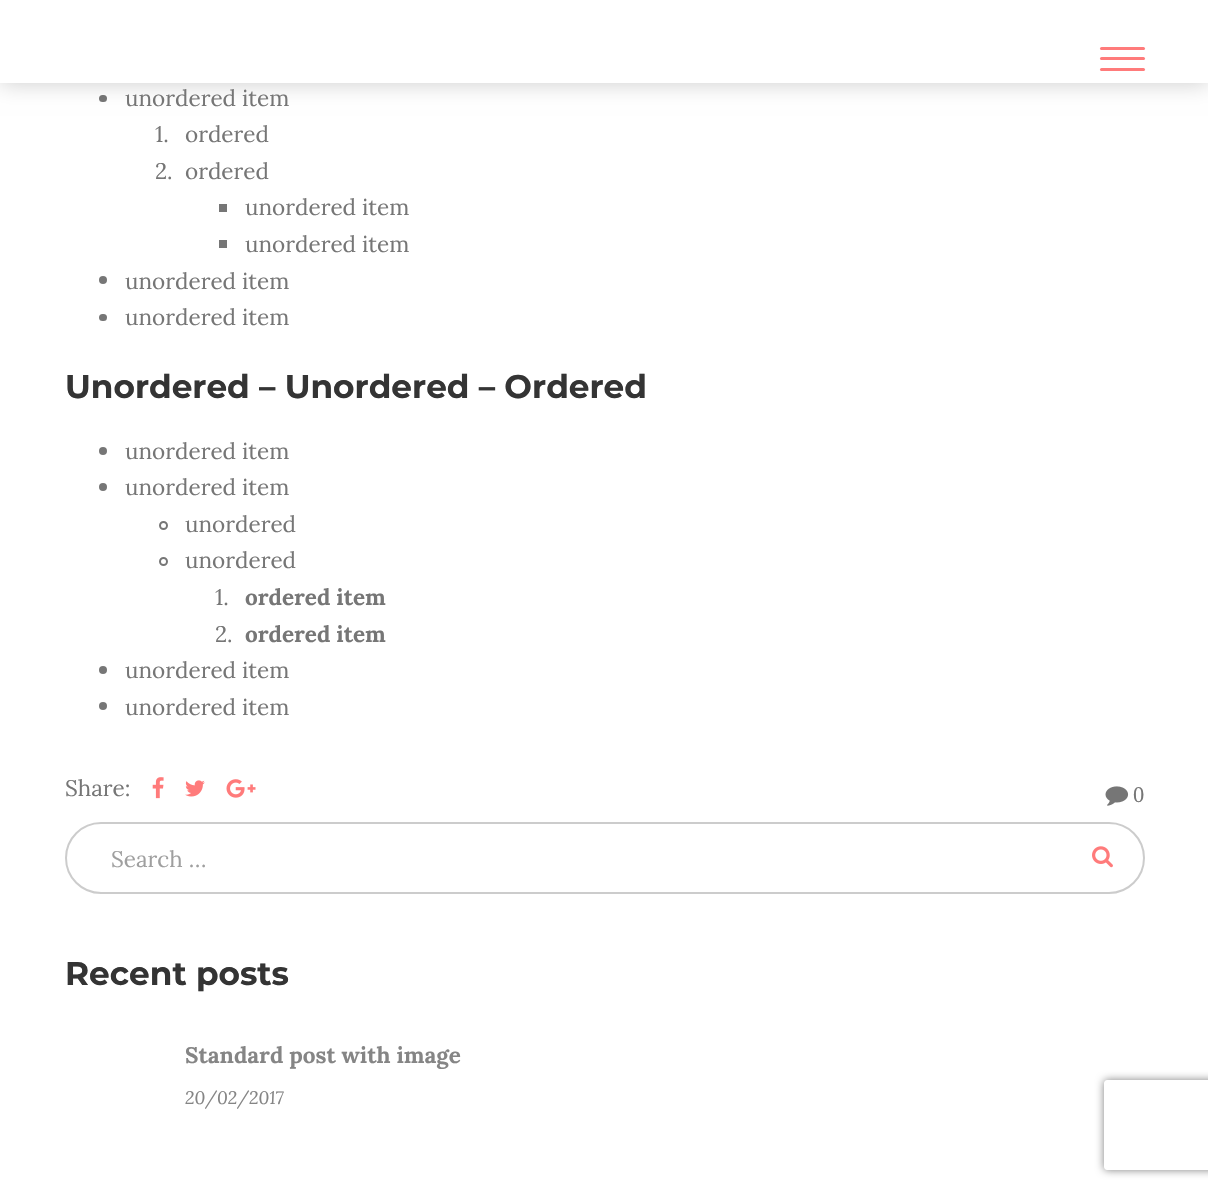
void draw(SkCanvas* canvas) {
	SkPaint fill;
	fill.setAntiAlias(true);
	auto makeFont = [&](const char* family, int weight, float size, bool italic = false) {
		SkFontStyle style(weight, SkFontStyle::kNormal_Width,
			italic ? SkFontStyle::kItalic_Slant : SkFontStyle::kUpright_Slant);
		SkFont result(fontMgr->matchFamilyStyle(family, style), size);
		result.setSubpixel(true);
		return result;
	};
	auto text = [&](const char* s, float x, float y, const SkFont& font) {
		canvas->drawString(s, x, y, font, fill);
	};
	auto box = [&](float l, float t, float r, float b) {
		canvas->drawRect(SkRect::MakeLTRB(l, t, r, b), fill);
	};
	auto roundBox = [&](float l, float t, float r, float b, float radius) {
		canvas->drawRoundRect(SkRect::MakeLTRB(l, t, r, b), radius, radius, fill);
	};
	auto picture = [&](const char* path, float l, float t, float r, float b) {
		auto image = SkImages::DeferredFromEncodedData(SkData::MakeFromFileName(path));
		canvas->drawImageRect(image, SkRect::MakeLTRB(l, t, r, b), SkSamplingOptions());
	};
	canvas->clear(0xFFFFFFFF);
	fill.setColor(0xFF767676);
	roundBox(99, 95, 107, 102, 3.5f);
	fill.setColor(0x33000000);
	fill.setMaskFilter(SkMaskFilter::MakeBlur(kNormal_SkBlurStyle, 11));
	canvas->drawRect(SkRect::MakeLTRB(0, 0, 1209, 83), fill);
	fill.setMaskFilter(nullptr);
	fill.setColor(0xFFFFFFFF);
	box(0, 0, 1208, 83);
	fill.setColor(0xFFFF7B7B);
	roundBox(1100, 47, 1145, 50, 1.5f);
	roundBox(1100, 57, 1145, 60, 1.5f);
	roundBox(1100, 68, 1145, 71, 1.5f);
	fill.setColor(0xFF767676);
	box(219, 204, 227, 212);
	box(219, 240, 227, 248);
	canvas->drawCircle(103, 280, 4, fill);
	roundBox(99, 314, 107, 321, 3.5f);
	canvas->drawCircle(103, 451, 4, fill);
	canvas->drawCircle(103, 487, 4, fill);
	fill.setStyle(SkPaint::kStroke_Style);
	fill.setStrokeWidth(2);
	canvas->drawCircle(163.5f, 525.5f, 3.5f, fill);
	canvas->drawCircle(163.5f, 561.5f, 3.5f, fill);
	fill.setStyle(SkPaint::kFill_Style);
	canvas->drawCircle(103, 670, 4, fill);
	canvas->drawCircle(103, 706, 4, fill);
	picture("image0.png", 152, 777, 164, 799);
	picture("image1.png", 185, 780, 205, 797);
	picture("image2.png", 226, 779, 256, 798);
	picture("image3.png", 1105, 786, 1129, 806);
	fill.setStyle(SkPaint::kStroke_Style);
	fill.setColor(0xFFCCCCCC);
	canvas->drawRoundRect(SkRect::MakeLTRB(66, 823, 1144, 893), 35, 35, fill);
	picture("image4.png", 1092, 846, 1113, 868);
	canvas->save();
	canvas->clipPath(SkPathBuilder(SkPathFillType::kEvenOdd).moveTo(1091, 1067).lineTo(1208, 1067).lineTo(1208, 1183).lineTo(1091, 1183).close().moveTo(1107, 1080).lineTo(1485, 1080).cubicTo(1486.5f, 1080, 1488, 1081.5f, 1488, 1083).lineTo(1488, 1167).cubicTo(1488, 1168.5f, 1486.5f, 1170, 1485, 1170).lineTo(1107, 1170).cubicTo(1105.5f, 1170, 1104, 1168.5f, 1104, 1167).lineTo(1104, 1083).cubicTo(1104, 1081.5f, 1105.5f, 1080, 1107, 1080).close().detach(), true);
	fill.setStyle(SkPaint::kFill_Style);
	fill.setColor(0xFF808080);
	fill.setMaskFilter(SkMaskFilter::MakeBlur(kNormal_SkBlurStyle, 4));
	canvas->drawRoundRect(SkRect::MakeLTRB(1104, 1080, 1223, 1170), 3, 3, fill);
	fill.setMaskFilter(nullptr);
	canvas->restore();
	auto font1 = makeFont("Lora", 400, 22.5f);
	fill.setColor(0xFF767676);
	text("unordered item", 125, 106, font1);
	text("1.", 155, 142, font1);
	text("ordered", 185, 142, font1);
	text("2.", 155, 179, font1);
	text("ordered", 185, 179, font1);
	text("unordered item", 245, 215, font1);
	text("unordered item", 245, 252, font1);
	text("unordered item", 125, 289, font1);
	text("unordered item", 125, 325, font1);
	auto font2 = makeFont("Montserrat", 700, 32.75f);
	fill.setColor(0xFF343434);
	text("Unordered – Unordered – Ordered", 65, 398, font2);
	fill.setColor(0xFF767676);
	text("unordered item", 125, 459, font1);
	text("unordered item", 125, 495, font1);
	text("unordered", 185, 532, font1);
	text("unordered", 185, 568, font1);
	text("1.", 215, 605, font1);
	auto font3 = makeFont("Lora", 700, 22.5f);
	text("ordered item", 245, 605, font3);
	text("2.", 215, 642, font1);
	text("ordered item", 245, 642, font3);
	text("unordered item", 125, 678, font1);
	text("unordered item", 125, 715, font1);
	text("Share:", 65, 796, font1);
	auto font4 = makeFont("Liberation Serif", 400, 22.5f);
	text("0", 1133, 802, font4);
	fill.setColor(0xFF9F9F9F);
	text("Search …", 111, 867, font1);
	fill.setColor(0xFF343434);
	text("Recent posts", 65, 985, font2);
	fill.setColor(0xFF858585);
	text("Standard post with image", 185, 1063, font3);
	auto font5 = makeFont("Lora", 400, 18, true);
	text("20/02/2017", 185, 1104, font5);
}
